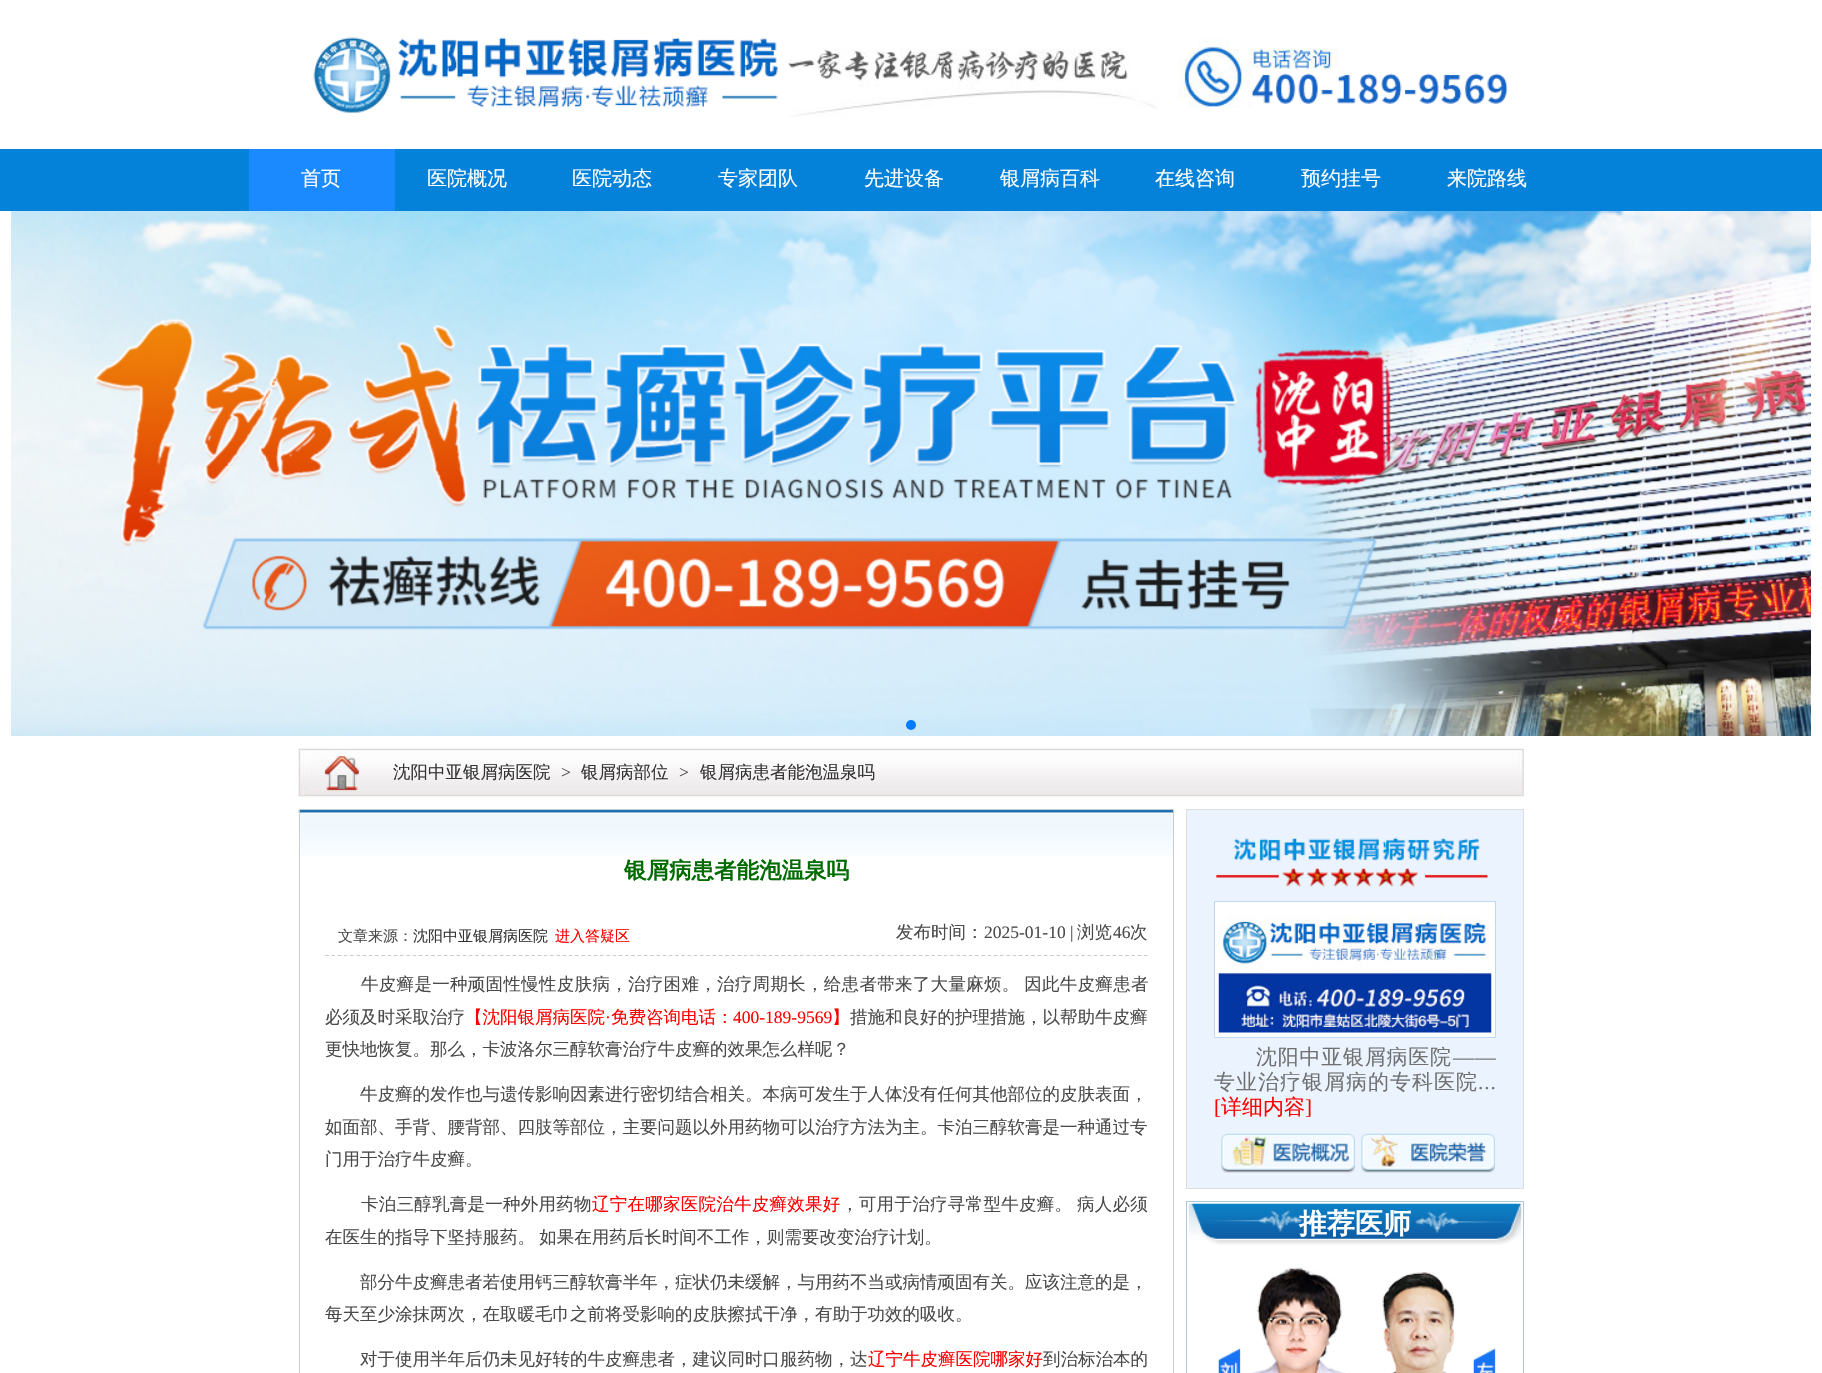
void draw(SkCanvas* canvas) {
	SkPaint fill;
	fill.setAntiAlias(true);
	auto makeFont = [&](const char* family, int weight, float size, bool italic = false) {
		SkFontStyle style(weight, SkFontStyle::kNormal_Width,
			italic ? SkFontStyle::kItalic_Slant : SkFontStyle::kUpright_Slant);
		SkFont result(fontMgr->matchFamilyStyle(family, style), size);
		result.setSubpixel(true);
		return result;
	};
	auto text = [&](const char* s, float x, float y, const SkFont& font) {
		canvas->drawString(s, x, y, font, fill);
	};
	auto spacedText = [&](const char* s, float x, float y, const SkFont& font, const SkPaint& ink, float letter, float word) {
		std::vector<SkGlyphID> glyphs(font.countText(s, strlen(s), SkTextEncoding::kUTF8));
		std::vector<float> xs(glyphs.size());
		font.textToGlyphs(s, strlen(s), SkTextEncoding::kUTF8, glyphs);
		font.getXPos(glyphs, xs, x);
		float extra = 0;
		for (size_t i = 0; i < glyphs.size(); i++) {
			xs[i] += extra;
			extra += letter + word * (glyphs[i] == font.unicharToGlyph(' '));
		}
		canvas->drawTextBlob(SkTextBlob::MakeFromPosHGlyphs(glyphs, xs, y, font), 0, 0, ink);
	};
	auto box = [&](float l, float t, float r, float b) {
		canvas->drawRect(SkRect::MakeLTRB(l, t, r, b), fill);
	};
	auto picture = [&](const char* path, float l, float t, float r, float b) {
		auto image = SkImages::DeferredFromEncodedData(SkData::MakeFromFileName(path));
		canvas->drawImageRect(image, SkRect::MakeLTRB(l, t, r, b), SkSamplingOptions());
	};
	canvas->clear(0xFFFFFFFF);
	picture("image0.png", 313, 37, 1508, 117);
	fill.setColor(0xFF0481D9);
	box(0, 149, 1822, 211);
	fill.setColor(0xFF1B8AFF);
	box(249, 149, 395, 211);
	picture("image1.png", 11, 211, 1811, 736);
	fill.setColor(0xFF007AFF);
	canvas->drawCircle(911, 725, 5, fill);
	picture("image2.png", 298, 748, 1524, 797);
	picture("image3.png", 298, 810, 1173, 856);
	fill.setStyle(SkPaint::kStroke_Style);
	fill.setStrokeWidth(1);
	fill.setColor(0xFFCCCCCC);
	canvas->drawRect(SkRect::MakeLTRB(299.5f, 809.5f, 1173.5f, 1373.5f), fill);
	fill.setStrokeWidth(1.2f);
	fill.setPathEffect(SkDashPathEffect::Make({{3.75f, 2.5f}}, 0));
	canvas->drawPath(SkPathBuilder().moveTo(325, 955.5f).lineTo(1147.5f, 955.5f).detach(), fill);
	fill.setPathEffect(nullptr);
	fill.setStyle(SkPaint::kFill_Style);
	fill.setColor(0xFFEBF4FE);
	canvas->drawRect(SkRect::MakeLTRB(1186.5f, 809.5f, 1523.5f, 1188.5f), fill);
	fill.setStyle(SkPaint::kStroke_Style);
	fill.setStrokeWidth(1);
	fill.setColor(0xFFDCDDDD);
	canvas->drawRect(SkRect::MakeLTRB(1186.5f, 809.5f, 1523.5f, 1188.5f), fill);
	picture("image4.png", 1216, 837, 1488, 887);
	fill.setStyle(SkPaint::kFill_Style);
	fill.setColor(0xFFFFFFFF);
	canvas->drawRect(SkRect::MakeLTRB(1214.5f, 901.5f, 1495.5f, 1037.5f), fill);
	fill.setStyle(SkPaint::kStroke_Style);
	fill.setColor(0xFFBBDAF6);
	canvas->drawRect(SkRect::MakeLTRB(1214.5f, 901.5f, 1495.5f, 1037.5f), fill);
	picture("image5.png", 1218, 915, 1492, 1033);
	picture("image6.png", 1221, 1133, 1355, 1173);
	picture("image7.png", 1361, 1133, 1495, 1173);
	fill.setColor(0xFFAFC8D7);
	canvas->drawRect(SkRect::MakeLTRB(1186.5f, 1201.5f, 1523.5f, 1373.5f), fill);
	picture("image8.png", 1188, 1203, 1522, 1245);
	picture("image9.png", 1218, 1267, 1496, 1373);
	auto font1 = makeFont("WenQuanYi Zen Hei", 500, 20);
	fill.setStyle(SkPaint::kFill_Style);
	fill.setColor(0xFFFFFFFF);
	text("首页", 301, 185, font1);
	text("医院概况", 427, 185, font1);
	text("医院动态", 572, 185, font1);
	text("专家团队", 718, 185, font1);
	text("先进设备", 864, 185, font1);
	text("银屑病百科", 1000, 185, font1);
	text("在线咨询", 1155, 185, font1);
	text("预约挂号", 1301, 185, font1);
	text("来院路线", 1447, 185, font1);
	auto font2 = makeFont("WenQuanYi Zen Hei", 500, 17.5f);
	fill.setColor(0xFF333333);
	text("沈阳中亚银屑病医院", 393, 778, font2);
	auto font3 = makeFont("Liberation Serif", 400, 17.5f);
	fill.setColor(0xFF4A4A4A);
	text(">", 561, 778, font3);
	fill.setColor(0xFF333333);
	text("银屑病部位", 581, 778, font2);
	fill.setColor(0xFF4A4A4A);
	text(">", 679, 778, font3);
	fill.setColor(0xFF333333);
	text("银屑病患者能泡温泉吗", 700, 778, font2);
	auto font4 = makeFont("WenQuanYi Zen Hei", 700, 22.5f);
	fill.setColor(0xFF006B01);
	text("银屑病患者能泡温泉吗", 624, 878, font4);
	auto font5 = makeFont("WenQuanYi Zen Hei", 500, 15);
	fill.setColor(0xFF4A4A4A);
	text("文章来源：", 338, 941, font5);
	fill.setColor(0xFF333333);
	text("沈阳中亚银屑病医院", 413, 941, font5);
	fill.setColor(0xFFFF0000);
	text("进入答疑区", 555, 941, font5);
	fill.setColor(0xFF4A4A4A);
	text("发布时间：", 896, 938, font2);
	text("2025-01-10 |", 984, 938, font3);
	text("浏览", 1077, 938, font2);
	text("46", 1113, 938, font3);
	text("次", 1130, 938, font2);
	spacedText("牛皮癣是一种顽固性慢性皮肤病，治疗困难，治疗周期长，给患者带来了大量麻烦。 因此牛皮癣患者", 361, 990, font2, fill, 0.3f, -1);
	text("必须及时采取治疗", 325, 1023, font2);
	fill.setColor(0xFFFF0000);
	text("【沈阳银屑病医院", 465, 1023, font2);
	text("·", 605, 1023, font3);
	text("免费咨询电话：", 611, 1023, font2);
	text("400-189-9569", 733, 1023, font3);
	text("】", 832, 1023, font2);
	fill.setColor(0xFF4A4A4A);
	text("措施和良好的护理措施，以帮助牛皮癣", 850, 1023, font2);
	text("更快地恢复。那么，卡波洛尔三醇软膏治疗牛皮癣的效果怎么样呢？", 325, 1055, font2);
	text("牛皮癣的发作也与遗传影响因素进行密切结合相关。本病可发生于人体没有任何其他部位的皮肤表面，", 360, 1100, font2);
	text("如面部、手背、腰背部、四肢等部位，主要问题以外用药物可以治疗方法为主。卡泊三醇软膏是一种通过专", 325, 1133, font2);
	text("门用于治疗牛皮癣。", 325, 1165, font2);
	spacedText("卡泊三醇乳膏是一种外用药物", 361, 1210, font2, fill, 0.25f, 0);
	fill.setColor(0xFFFF0000);
	spacedText("辽宁在哪家医院治牛皮癣效果好", 592, 1210, font2, fill, 0.25f, 0);
	fill.setColor(0xFF4A4A4A);
	spacedText("，可用于治疗寻常型牛皮癣。 病人必须", 841, 1210, font2, fill, 0.3f, -1);
	spacedText("在医生的指导下坚持服药。 如果在用药后长时间不工作，则需要改变治疗计划。", 325, 1243, font2, fill, 0, -1);
	text("部分牛皮癣患者若使用钙三醇软膏半年，症状仍未缓解，与用药不当或病情顽固有关。应该注意的是，", 360, 1288, font2);
	text("每天至少涂抹两次，在取暖毛巾之前将受影响的皮肤擦拭干净，有助于功效的吸收。", 325, 1320, font2);
	text("对于使用半年后仍未见好转的牛皮癣患者，建议同时口服药物，达", 360, 1365, font2);
	fill.setColor(0xFFFF0000);
	text("辽宁牛皮癣医院哪家好", 868, 1365, font2);
	fill.setColor(0xFF4A4A4A);
	text("到治标治本的", 1043, 1365, font2);
	auto font6 = makeFont("WenQuanYi Zen Hei", 500, 21);
	fill.setColor(0xFF717171);
	spacedText("沈阳中亚银屑病医院", 1256, 1064, font6, fill, 0.75f, 0);
	auto font7 = makeFont("Liberation Serif", 400, 21);
	spacedText("——", 1453, 1064, font7, fill, 0.75f, 0);
	spacedText("专业治疗银屑病的专科医院", 1214, 1089, font6, fill, 1, 0);
	spacedText("...", 1478, 1089, font7, fill, 1, 0);
	fill.setColor(0xFFFF0000);
	text("[", 1214, 1114, font7);
	text("详细内容", 1221, 1114, font6);
	text("]", 1305, 1114, font7);
	auto font8 = makeFont("WenQuanYi Zen Hei", 700, 28);
	fill.setColor(0xFFFFFFFF);
	text("推荐医师", 1299, 1233, font8);
}
